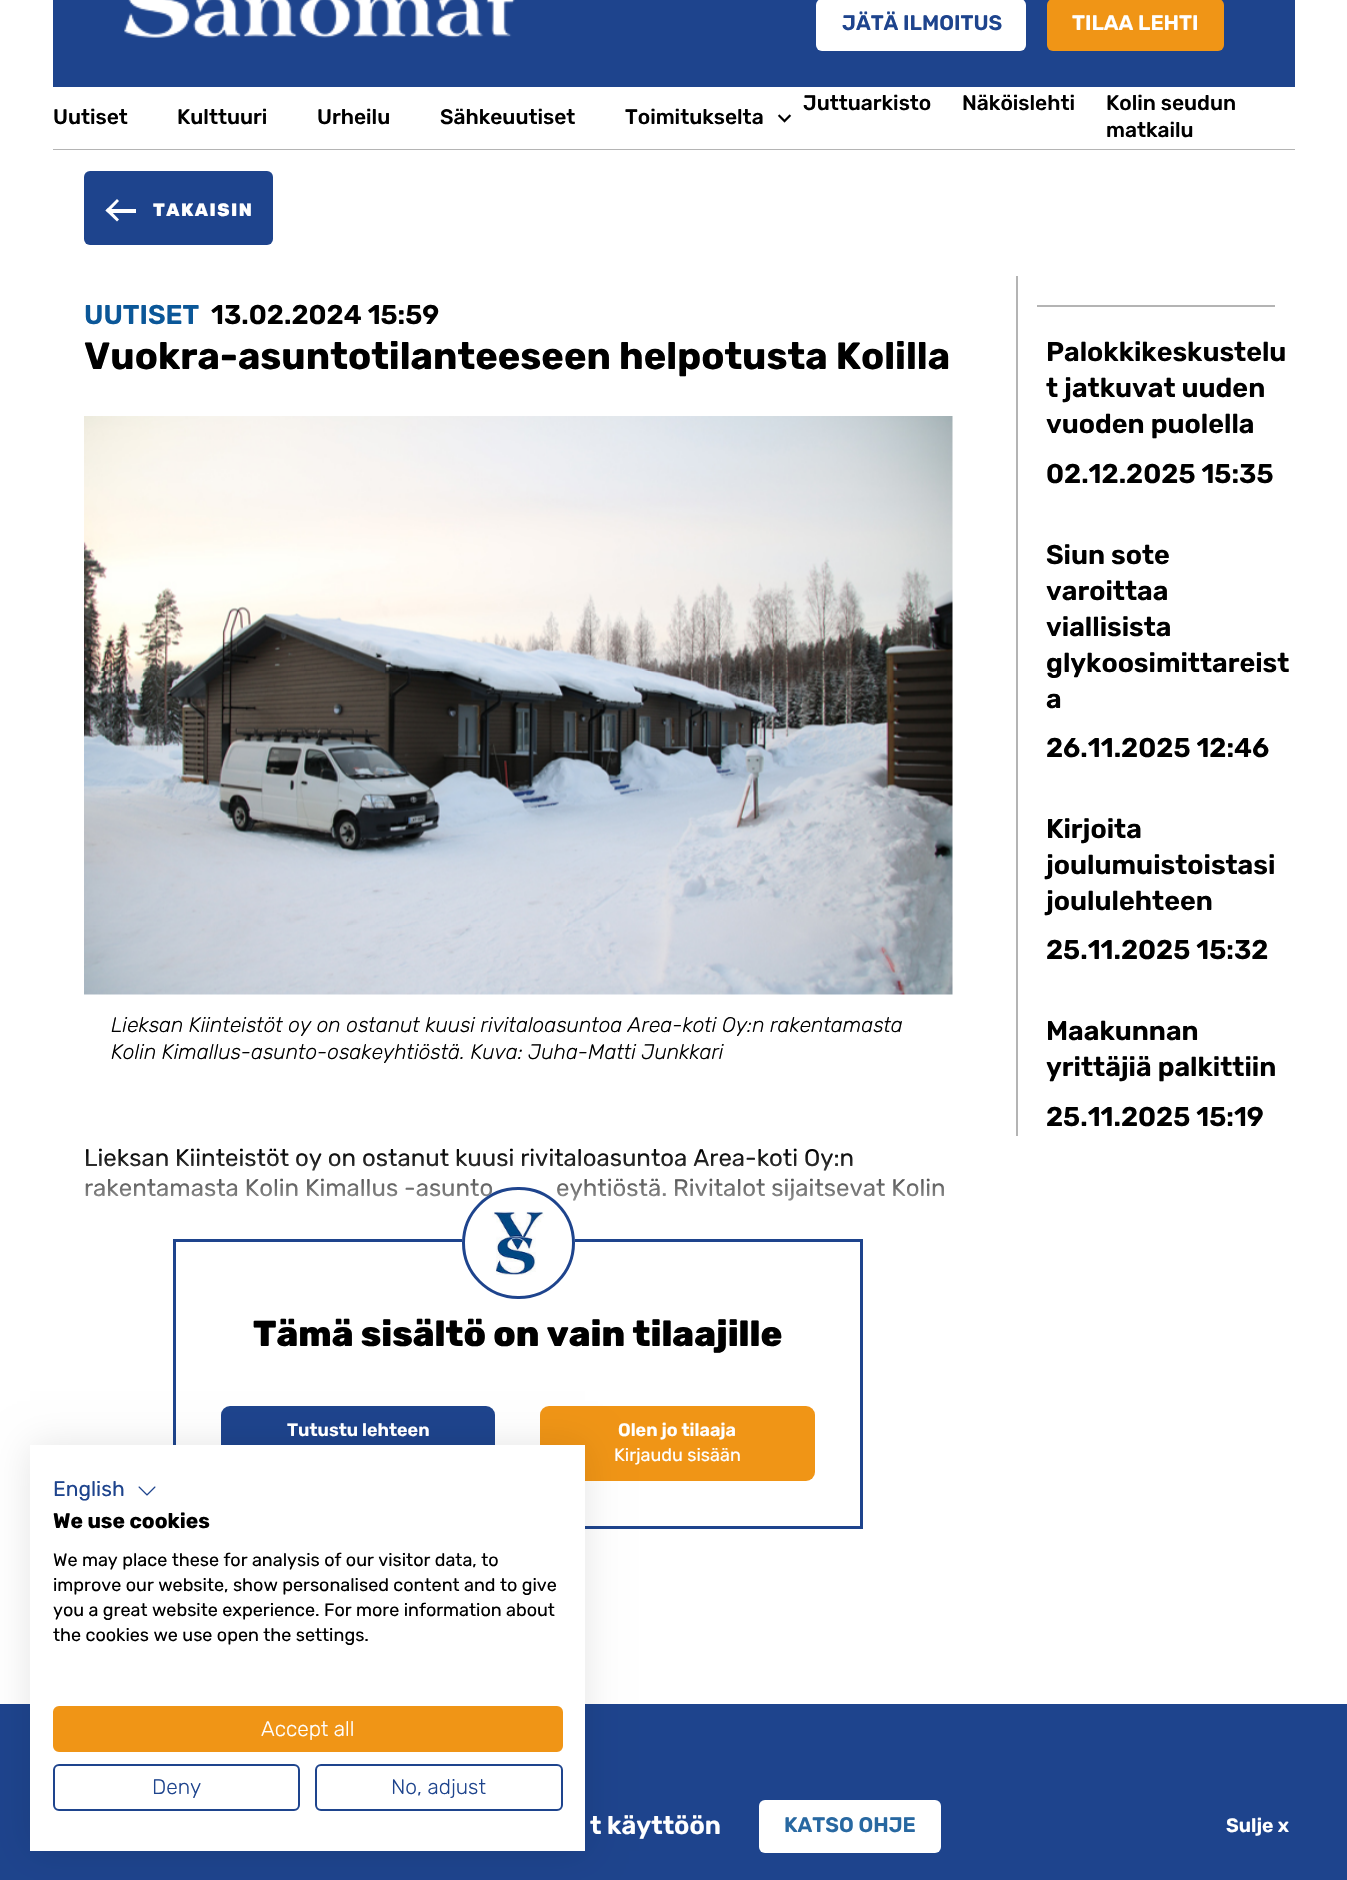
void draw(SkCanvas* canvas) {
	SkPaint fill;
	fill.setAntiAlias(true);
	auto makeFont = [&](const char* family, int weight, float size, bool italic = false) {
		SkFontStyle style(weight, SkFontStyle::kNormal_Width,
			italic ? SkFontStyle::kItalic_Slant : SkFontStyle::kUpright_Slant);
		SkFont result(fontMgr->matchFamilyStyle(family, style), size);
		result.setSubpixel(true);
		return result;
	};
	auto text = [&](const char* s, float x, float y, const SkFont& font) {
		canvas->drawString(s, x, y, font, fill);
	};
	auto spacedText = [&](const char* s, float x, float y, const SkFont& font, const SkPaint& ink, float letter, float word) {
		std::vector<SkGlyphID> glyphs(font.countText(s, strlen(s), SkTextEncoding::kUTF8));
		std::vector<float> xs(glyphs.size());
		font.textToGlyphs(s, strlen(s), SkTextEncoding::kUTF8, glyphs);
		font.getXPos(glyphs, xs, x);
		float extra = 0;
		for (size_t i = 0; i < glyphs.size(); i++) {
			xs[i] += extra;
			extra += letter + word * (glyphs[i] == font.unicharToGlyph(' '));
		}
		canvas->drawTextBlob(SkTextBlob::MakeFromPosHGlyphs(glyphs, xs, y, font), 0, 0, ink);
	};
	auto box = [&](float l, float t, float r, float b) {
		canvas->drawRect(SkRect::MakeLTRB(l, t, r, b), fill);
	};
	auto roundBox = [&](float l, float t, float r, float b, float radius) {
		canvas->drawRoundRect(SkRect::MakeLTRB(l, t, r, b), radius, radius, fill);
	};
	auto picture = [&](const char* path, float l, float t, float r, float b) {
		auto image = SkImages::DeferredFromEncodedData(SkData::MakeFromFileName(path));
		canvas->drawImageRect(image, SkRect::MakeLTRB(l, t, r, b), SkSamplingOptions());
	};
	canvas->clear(0xFFFFFFFF);
	fill.setColor(0xFF1E448D);
	box(53, 0, 1295, 87);
	picture("image0.png", 124, 0, 515, 38);
	fill.setColor(0xFFFFFFFF);
	roundBox(816, -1, 1026, 51, 6);
	fill.setColor(0xFFF09516);
	roundBox(1047, -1, 1224, 51, 6);
	fill.setColor(0xFFB4B4B4);
	box(53, 149, 1295, 150);
	picture("image1.png", 777, 114, 792, 123);
	fill.setColor(0xFF1E448D);
	roundBox(84, 171, 273, 245, 6);
	fill.setColor(0xFFFFFFFF);
	box(110, 209, 136, 213);
	canvas->drawPath(SkPathBuilder().moveTo(105.5f, 210.5f).lineTo(117, 199).lineTo(119, 201).lineTo(108, 212.5f).close().detach(), fill);
	canvas->drawPath(SkPathBuilder().moveTo(105.5f, 210.5f).lineTo(108, 208).lineTo(119, 219.5f).lineTo(117, 221.5f).close().detach(), fill);
	picture("image2.png", 84, 416, 953, 995);
	fill.setStyle(SkPaint::kStroke_Style);
	fill.setStrokeWidth(3);
	fill.setColor(0xFF1E448D);
	canvas->drawRect(SkRect::MakeLTRB(174.5f, 1240.5f, 861.5f, 1527.5f), fill);
	fill.setStyle(SkPaint::kFill_Style);
	roundBox(221, 1406, 495, 1481, 9);
	fill.setColor(0xFFF09516);
	roundBox(540, 1406, 815, 1481, 9);
	fill.setColor(0xFFB4B4B4);
	box(1016, 276, 1018, 1136);
	box(1037, 305, 1275, 307);
	fill.setColor(0xFF1E448D);
	box(0, 1704, 1347, 1880);
	fill.setColor(0x1A000000);
	fill.setMaskFilter(SkMaskFilter::MakeBlur(kNormal_SkBlurStyle, 18));
	canvas->drawRect(SkRect::MakeLTRB(30, 1445, 585, 1851), fill);
	fill.setMaskFilter(nullptr);
	fill.setColor(0xFFFFFFFF);
	box(30, 1445, 585, 1851);
	picture("image4.png", 138, 1486, 156, 1496);
	fill.setColor(0xFFF09516);
	canvas->drawRoundRect(SkRect::MakeLTRB(54, 1707, 562, 1751), 5, 5, fill);
	fill.setStyle(SkPaint::kStroke_Style);
	fill.setStrokeWidth(2);
	canvas->drawRoundRect(SkRect::MakeLTRB(54, 1707, 562, 1751), 5, 5, fill);
	fill.setColor(0xFF1E448D);
	canvas->drawRoundRect(SkRect::MakeLTRB(54, 1765, 299, 1810), 5, 5, fill);
	canvas->drawRoundRect(SkRect::MakeLTRB(316, 1765, 562, 1810), 5, 5, fill);
	fill.setStyle(SkPaint::kFill_Style);
	fill.setColor(0xFFFFFFFF);
	roundBox(759, 1800, 941, 1853, 6);
	auto font1 = makeFont("Rubik", 600, 21);
	fill.setColor(0xFF1E448D);
	text("JÄTÄ ILMOITUS", 842, 30, font1);
	fill.setColor(0xFFFFFFFF);
	text("TILAA LEHTI", 1072, 30, font1);
	auto font2 = makeFont("Rubik", 500, 21);
	fill.setColor(0xFF000000);
	text("Uutiset", 53, 124, font2);
	text("Kulttuuri", 177, 124, font2);
	text("Urheilu", 317, 124, font2);
	text("Sähkeuutiset", 440, 124, font2);
	text("Toimitukselta", 625, 124, font2);
	text("Juttuarkisto", 803, 110, font2);
	text("Näköislehti", 962, 110, font2);
	text("Kolin seudun", 1106, 110, font2);
	text("matkailu", 1106, 137, font2);
	auto font3 = makeFont("Rubik", 800, 18);
	fill.setColor(0xFFFFFFFF);
	spacedText("TAKAISIN", 153, 216, font3, fill, 1.5f, 0);
	auto font4 = makeFont("Rubik", 600, 27);
	fill.setColor(0xFF0B5798);
	text("UUTISET", 84, 324, font4);
	fill.setColor(0xFF000000);
	text("13.02.2024 15:59", 211, 324, font4);
	auto font5 = makeFont("Rubik", 700, 38);
	text("Vuokra-asuntotilanteeseen helpotusta Kolilla", 84, 369, font5);
	auto font6 = makeFont("Rubik", 300, 21, true);
	text("Lieksan Kiinteistöt oy on ostanut kuusi rivitaloasuntoa Area-koti Oy:n rakentamasta", 111, 1032, font6);
	text("Kolin Kimallus-asunto-osakeyhtiöstä. Kuva: Juha-Matti Junkkari", 111, 1059, font6);
	auto font7 = makeFont("Rubik", 400, 24);
	text("Lieksan Kiinteistöt oy on ostanut kuusi rivitaloasuntoa Area-koti Oy:n", 84, 1166, font7);
	text("rakentamasta Kolin Kimallus -asunto", 84, 1196, font7);
	text("eyhtiöstä. Rivitalot sijaitsevat Kolin", 556, 1196, font7);
	{
		const SkColor colors[] = {0xFFFFFFFF, 0x00FFFFFF};
		const float stops[] = {0, 1};
		const SkPoint ends[] = {{518, 1239}, {518, 1149}};
		fill.setShader(SkGradientShader::MakeLinear(ends, colors, stops, 2, SkTileMode::kClamp));
		fill.setAlpha(255);
	}
	box(85, 1151, 944, 1201);
	fill.setShader(nullptr);
	fill.setColor(0xFFFFFFFF);
	roundBox(462, 1187, 575, 1299, 56);
	picture("image3.png", 492, 1211, 544, 1275);
	fill.setStyle(SkPaint::kStroke_Style);
	fill.setStrokeWidth(3);
	fill.setColor(0xFF1E448D);
	canvas->drawRoundRect(SkRect::MakeLTRB(463.5f, 1188.5f, 573.5f, 1297.5f), 54.5f, 54.5f, fill);
	auto font8 = makeFont("Rubik", 800, 36);
	fill.setStyle(SkPaint::kFill_Style);
	fill.setColor(0xFF000000);
	text("Tämä sisältö on vain tilaajille", 253, 1346, font8);
	auto font9 = makeFont("Rubik", 600, 18);
	fill.setColor(0xFFFFFFFF);
	text("Tutustu lehteen", 287, 1436, font9);
	text("Olen jo tilaaja", 618, 1436, font9);
	auto font10 = makeFont("Rubik", 400, 18);
	text("Kirjaudu sisään", 614, 1461, font10);
	fill.setColor(0xFF000000);
	text("Palokkikeskustelu", 1046, 361, font4);
	text("t jatkuvat uuden", 1046, 397, font4);
	text("vuoden puolella", 1046, 433, font4);
	text("02.12.2025 15:35", 1046, 483, font4);
	text("Siun sote", 1046, 564, font4);
	text("varoittaa", 1046, 600, font4);
	text("viallisista", 1046, 636, font4);
	text("glykoosimittareist", 1046, 672, font4);
	text("a", 1046, 708, font4);
	text("26.11.2025 12:46", 1046, 757, font4);
	text("Kirjoita", 1046, 838, font4);
	text("joulumuistoistasi", 1046, 874, font4);
	text("joululehteen", 1046, 910, font4);
	text("25.11.2025 15:32", 1046, 959, font4);
	text("Maakunnan", 1046, 1040, font4);
	text("yrittäjiä palkittiin", 1046, 1076, font4);
	text("25.11.2025 15:19", 1046, 1126, font4);
	auto font11 = makeFont("Rubik", 400, 21);
	fill.setColor(0xFF1E448D);
	text("English", 53, 1496, font11);
	auto font12 = makeFont("Rubik", 700, 21);
	fill.setColor(0xFF000000);
	text("We use cookies", 53, 1528, font12);
	text("We may place these for analysis of our visitor data, to", 53, 1566, font10);
	text("improve our website, show personalised content and to give", 53, 1591, font10);
	text("you a great website experience. For more information about", 53, 1616, font10);
	text("the cookies we use open the settings.", 53, 1641, font10);
	auto font13 = makeFont("Rubik", 300, 21);
	fill.setColor(0xFFFFFFFF);
	text("Accept all", 261, 1736, font13);
	fill.setColor(0xFF1E448D);
	text("Deny", 152, 1794, font13);
	text("No, adjust", 391, 1794, font13);
	auto font14 = makeFont("Rubik", 600, 25.5f);
	fill.setColor(0xFFFFFFFF);
	text("t käyttöön", 590, 1834, font14);
	fill.setColor(0xFF2868A1);
	text("KATSO OHJE", 784, 1832, font1);
	auto font15 = makeFont("Rubik", 600, 19.5f);
	fill.setColor(0xFFFFFFFF);
	text("Sulje x", 1226, 1832, font15);
}
